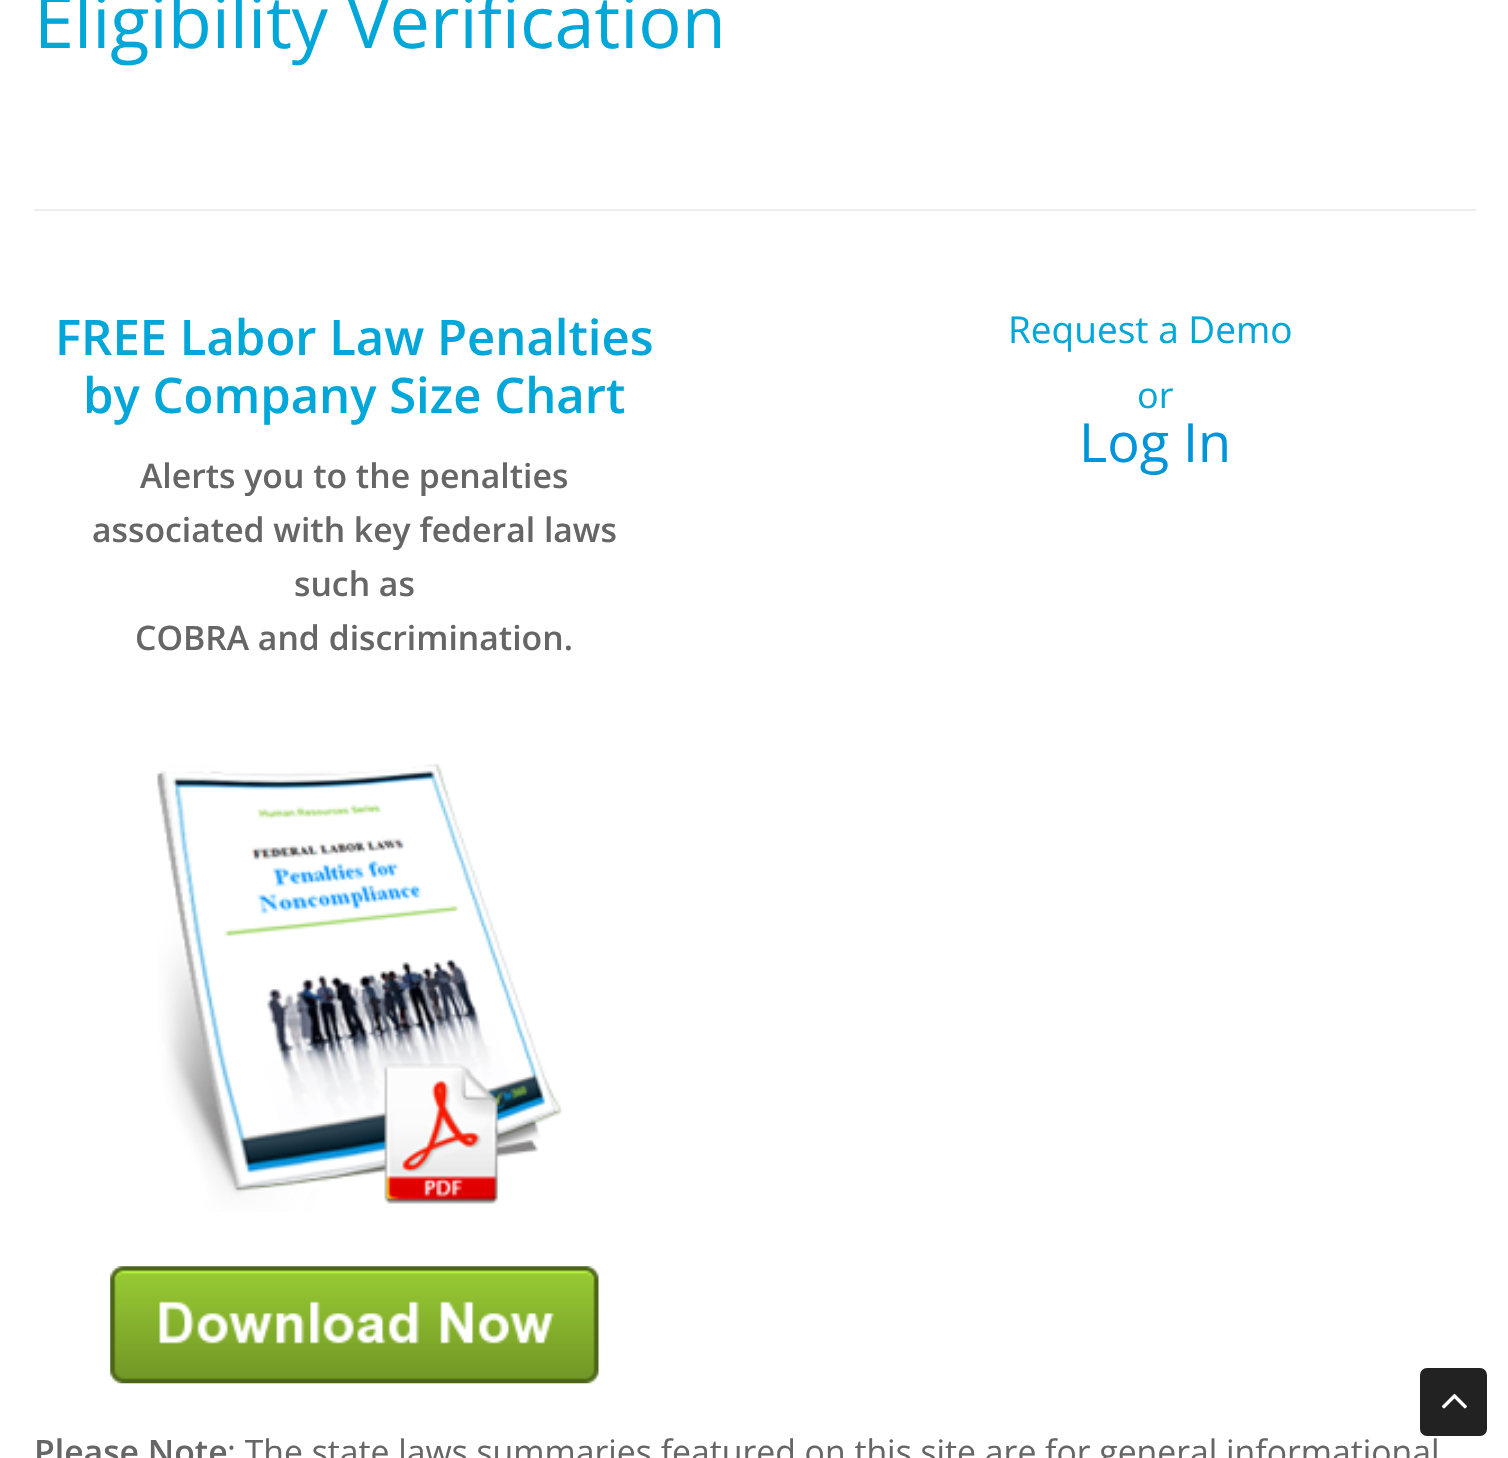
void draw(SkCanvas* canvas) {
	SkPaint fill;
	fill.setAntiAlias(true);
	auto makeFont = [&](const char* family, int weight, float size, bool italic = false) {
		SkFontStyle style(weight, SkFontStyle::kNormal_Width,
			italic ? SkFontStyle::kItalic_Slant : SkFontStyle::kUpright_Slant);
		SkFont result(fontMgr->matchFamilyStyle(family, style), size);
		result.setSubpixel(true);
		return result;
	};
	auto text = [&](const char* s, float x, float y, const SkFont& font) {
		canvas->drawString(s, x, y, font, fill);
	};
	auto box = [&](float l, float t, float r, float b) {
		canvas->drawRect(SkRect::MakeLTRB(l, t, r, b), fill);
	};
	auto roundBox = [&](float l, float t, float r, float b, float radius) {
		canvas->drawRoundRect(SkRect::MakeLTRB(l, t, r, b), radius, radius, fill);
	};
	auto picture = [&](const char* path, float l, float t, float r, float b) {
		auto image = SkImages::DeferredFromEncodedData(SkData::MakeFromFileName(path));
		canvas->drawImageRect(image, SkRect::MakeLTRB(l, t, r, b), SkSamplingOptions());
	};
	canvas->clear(0xFFFFFFFF);
	fill.setColor(0xFFEEEEEE);
	box(34, 209, 1476, 211);
	picture("image0.png", 157, 763, 563, 1212);
	picture("image1.png", 110, 1266, 599, 1384);
	fill.setColor(0xFF222222);
	roundBox(1420, 1368, 1487, 1436, 7);
	picture("image2.png", 1442, 1393, 1467, 1409);
	auto font1 = makeFont("Open Sans", 400, 72);
	fill.setColor(0xFF00A7D8);
	text("Eligibility Verification", 34, 48, font1);
	auto font2 = makeFont("Open Sans", 600, 49);
	text("FREE Labor Law Penalties", 55, 355, font2);
	text("by Company Size Chart", 83, 413, font2);
	auto font3 = makeFont("Open Sans", 600, 33.75f);
	fill.setColor(0xFF666666);
	text("Alerts you to the penalties", 140, 488, font3);
	text("associated with key federal laws", 92, 542, font3);
	text("such as", 294, 596, font3);
	text("COBRA and discrimination.", 135, 650, font3);
	auto font4 = makeFont("Open Sans", 400, 37);
	fill.setColor(0xFF00A7D8);
	text("Request a Demo", 1008, 343, font4);
	auto font5 = makeFont("Open Sans", 400, 36);
	text("or", 1137, 408, font5);
	auto font6 = makeFont("Open Sans", 400, 54);
	fill.setColor(0xFF0094D9);
	text("Log In", 1079, 462, font6);
	fill.setColor(0xFF666666);
	text("Please Note", 34, 1464, font3);
	auto font7 = makeFont("Open Sans", 400, 33.75f);
	text(": The state laws summaries featured on this site are for general informational", 227, 1464, font7);
}
